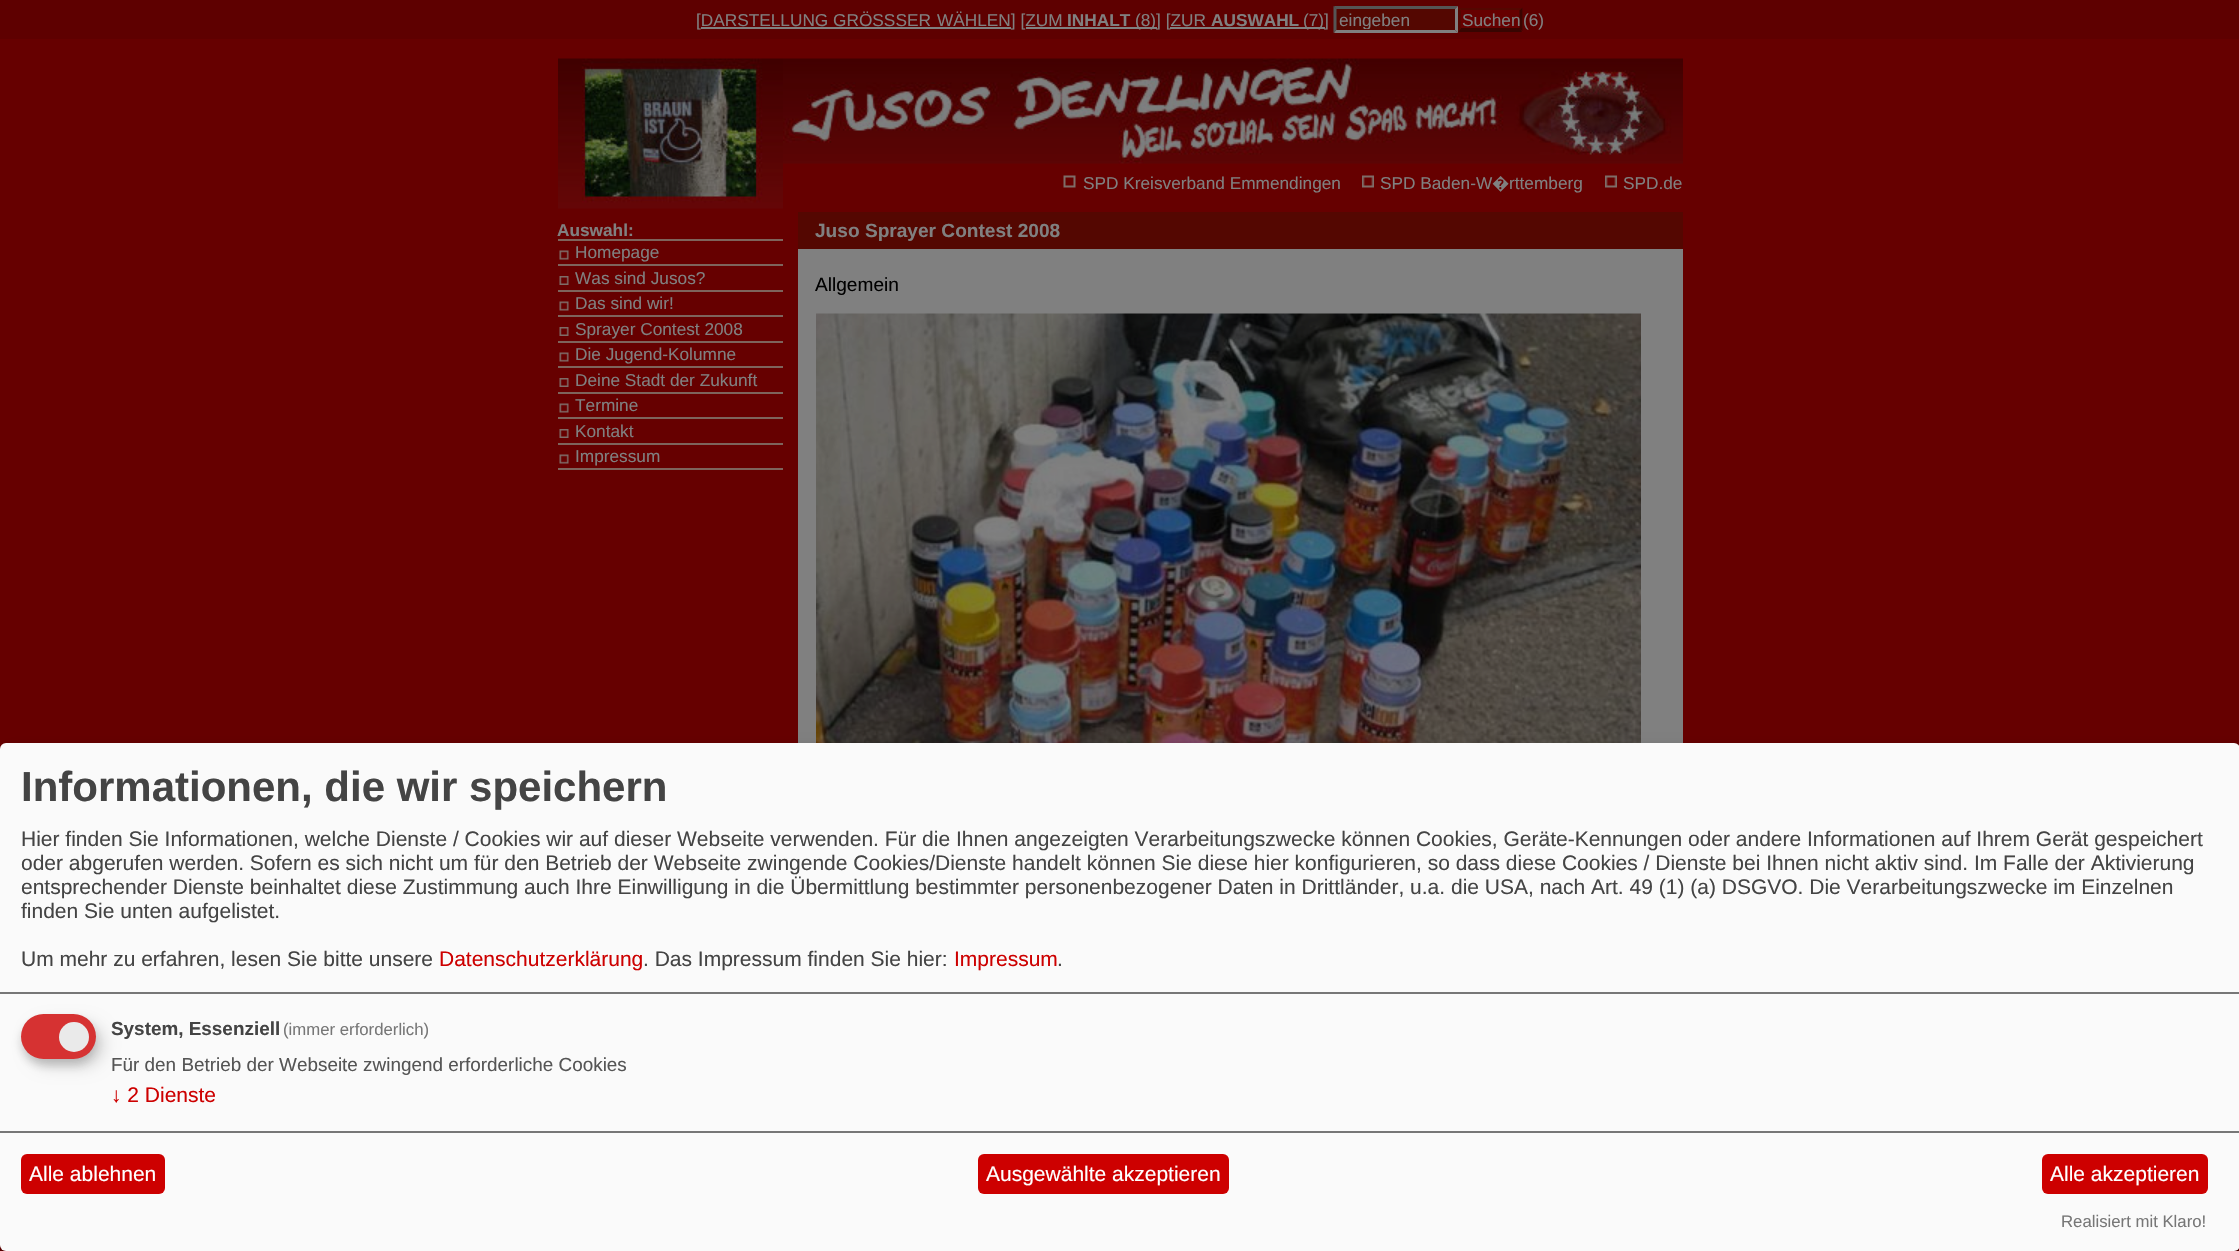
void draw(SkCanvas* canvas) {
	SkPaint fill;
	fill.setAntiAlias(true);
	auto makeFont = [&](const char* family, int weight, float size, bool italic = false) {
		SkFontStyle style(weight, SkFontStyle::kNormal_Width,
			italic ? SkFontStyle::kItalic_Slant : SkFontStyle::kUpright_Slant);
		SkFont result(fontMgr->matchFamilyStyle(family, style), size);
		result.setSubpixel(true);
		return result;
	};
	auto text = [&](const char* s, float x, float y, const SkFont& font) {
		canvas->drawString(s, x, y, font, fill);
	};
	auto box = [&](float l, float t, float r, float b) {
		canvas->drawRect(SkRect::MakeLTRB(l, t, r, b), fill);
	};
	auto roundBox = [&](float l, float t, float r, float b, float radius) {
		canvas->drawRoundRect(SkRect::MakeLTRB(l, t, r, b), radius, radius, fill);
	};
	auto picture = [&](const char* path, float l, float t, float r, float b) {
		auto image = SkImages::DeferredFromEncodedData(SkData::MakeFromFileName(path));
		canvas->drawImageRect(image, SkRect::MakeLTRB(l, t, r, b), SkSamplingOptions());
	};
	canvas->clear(0xFF660000);
	fill.setColor(0xFF5E0000);
	box(0, 0, 2239, 39);
	fill.setColor(0xFF808080);
	box(701, 27, 1011, 29);
	box(1026, 27, 1157, 29);
	box(1170, 27, 1325, 29);
	fill.setColor(0xFF540701);
	box(1334, 6, 1458, 33);
	fill.setColor(0xFF555555);
	canvas->drawPath(SkPathBuilder().moveTo(1334, 6).lineTo(1458, 6).lineTo(1455, 9).lineTo(1336, 9).close().detach(), fill);
	fill.setColor(0xFF808080);
	canvas->drawPath(SkPathBuilder().moveTo(1458, 6).lineTo(1458, 33).lineTo(1455, 30).lineTo(1455, 9).close().detach(), fill);
	canvas->drawPath(SkPathBuilder().moveTo(1458, 33).lineTo(1334, 33).lineTo(1336, 30).lineTo(1455, 30).close().detach(), fill);
	fill.setColor(0xFF555555);
	canvas->drawPath(SkPathBuilder().moveTo(1333.5f, 33).lineTo(1333.5f, 6).lineTo(1336.5f, 9).lineTo(1336.5f, 30).close().detach(), fill);
	fill.setColor(0xFF660000);
	box(1458, 8, 1523, 32);
	fill.setColor(0xFF540701);
	canvas->drawPath(SkPathBuilder().moveTo(1458, 8).lineTo(1522, 8).lineTo(1520, 10).lineTo(1461, 10).close().detach(), fill);
	fill.setColor(0xFF380501);
	canvas->drawPath(SkPathBuilder().moveTo(1522.5f, 7.5f).lineTo(1522.5f, 31.5f).lineTo(1519.5f, 28.5f).lineTo(1519.5f, 10.5f).close().detach(), fill);
	canvas->drawPath(SkPathBuilder().moveTo(1522, 32).lineTo(1458, 32).lineTo(1461, 28).lineTo(1520, 28).close().detach(), fill);
	fill.setColor(0xFF540701);
	canvas->drawPath(SkPathBuilder().moveTo(1458, 31.5f).lineTo(1458, 7.5f).lineTo(1461, 10.5f).lineTo(1461, 28.5f).close().detach(), fill);
	picture("image0.png", 783, 58, 1683, 164);
	picture("image1.png", 1063, 175, 1076, 188);
	picture("image2.png", 1362, 175, 1374, 188);
	picture("image2.png", 1605, 175, 1617, 188);
	picture("image3.png", 558, 58, 783, 209);
	fill.setColor(0xFF7E645C);
	box(558, 239, 783, 241);
	picture("image4.png", 559, 250, 569, 260);
	box(558, 264, 783, 266);
	picture("image5.png", 559, 276, 569, 285);
	box(558, 290, 783, 292);
	picture("image4.png", 559, 301, 569, 311);
	box(558, 315, 783, 317);
	picture("image5.png", 559, 327, 569, 336);
	box(558, 341, 783, 343);
	picture("image4.png", 559, 352, 569, 362);
	box(558, 366, 783, 368);
	picture("image5.png", 559, 378, 569, 387);
	box(558, 392, 783, 394);
	picture("image4.png", 559, 403, 569, 413);
	box(558, 417, 783, 419);
	picture("image5.png", 559, 429, 569, 438);
	box(558, 443, 783, 445);
	picture("image4.png", 559, 454, 569, 464);
	box(558, 468, 783, 470);
	fill.setColor(0xFF540701);
	box(798, 212, 1683, 249);
	fill.setColor(0xFF808080);
	box(798, 249, 1683, 743);
	picture("image6.png", 816, 313, 1641, 743);
	fill.setColor(0x30000000);
	fill.setMaskFilter(SkMaskFilter::MakeBlur(kNormal_SkBlurStyle, 7.5f));
	canvas->drawRoundRect(SkRect::MakeLTRB(8, 750, 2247, 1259), 6, 6, fill);
	fill.setMaskFilter(nullptr);
	fill.setColor(0x33000000);
	fill.setMaskFilter(SkMaskFilter::MakeBlur(kNormal_SkBlurStyle, 4.5f));
	canvas->drawRoundRect(SkRect::MakeLTRB(0, 749, 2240, 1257), 6, 6, fill);
	fill.setMaskFilter(nullptr);
	fill.setColor(0xFFFAFAFA);
	roundBox(0, 743, 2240, 1251, 6);
	fill.setColor(0xFF777777);
	box(0, 992, 2239, 994);
	fill.setColor(0x26000000);
	fill.setMaskFilter(SkMaskFilter::MakeBlur(kNormal_SkBlurStyle, 7.5f));
	canvas->drawRoundRect(SkRect::MakeLTRB(29, 1022, 104, 1067), 22.5f, 22.5f, fill);
	fill.setMaskFilter(nullptr);
	fill.setColor(0x33323232);
	fill.setMaskFilter(SkMaskFilter::MakeBlur(kNormal_SkBlurStyle, 4.5f));
	canvas->drawRoundRect(SkRect::MakeLTRB(21, 1020, 96, 1065), 22.5f, 22.5f, fill);
	fill.setMaskFilter(nullptr);
	fill.setColor(0xFFD63232);
	roundBox(21, 1014, 96, 1059, 22.5f);
	fill.setColor(0xFFEAEAEA);
	canvas->drawCircle(74, 1037, 15, fill);
	fill.setColor(0xFF777777);
	box(0, 1131, 2239, 1133);
	fill.setColor(0xFFCD0000);
	roundBox(21, 1154, 165, 1194, 6);
	roundBox(978, 1154, 1229, 1194, 6);
	roundBox(2042, 1154, 2208, 1194, 6);
	auto font1 = makeFont("Liberation Sans", 400, 17.25f);
	fill.setColor(0xFF808080);
	text("[DARSTELLUNG GRÖSSSER", 696, 26, font1);
	text("WÄHLEN] [ZUM", 937, 26, font1);
	auto font2 = makeFont("Liberation Sans", 700, 17.25f);
	text("INHALT", 1067, 26, font2);
	text("(8)] [ZUR", 1135, 26, font1);
	text("AUSWAHL", 1211, 26, font2);
	text("(7)]", 1303, 26, font1);
	canvas->save();
	canvas->clipRect(SkRect::MakeLTRB(1338, 11, 1454, 29));
	text("eingeben", 1339, 26, font1);
	canvas->restore();
	text("Suchen", 1462, 26, font1);
	text("(6)", 1523, 26, font1);
	text("SPD Kreisverband Emmendingen", 1083, 189, font1);
	text("SPD Baden-W", 1380, 189, font1);
	auto font3 = makeFont("Noto Sans", 400, 17.25f);
	text("�", 1492, 189, font3);
	text("rttemberg", 1509, 189, font1);
	text("SPD.de", 1623, 189, font1);
	text("Auswahl:", 557, 236, font2);
	text("Homepage", 575, 258, font1);
	text("Was sind Jusos?", 575, 284, font1);
	text("Das sind wir!", 575, 309, font1);
	text("Sprayer Contest 2008", 575, 335, font1);
	text("Die Jugend-Kolumne", 575, 360, font1);
	text("Deine Stadt der Zukunft", 575, 386, font1);
	text("Termine", 575, 411, font1);
	text("Kontakt", 575, 437, font1);
	text("Impressum", 575, 462, font1);
	auto font4 = makeFont("Liberation Sans", 700, 19.1f);
	text("Juso Sprayer Contest 2008", 815, 237, font4);
	auto font5 = makeFont("Liberation Sans", 400, 19.1f);
	fill.setColor(0xFF000000);
	text("Allgemein", 815, 291, font5);
	auto font6 = makeFont("Liberation Sans", 700, 42);
	fill.setColor(0xFF444444);
	text("Informationen, die wir speichern", 21, 801, font6);
	auto font7 = makeFont("Liberation Sans", 400, 21);
	text("Hier finden Sie Informationen, welche Dienste / Cookies wir auf dieser Webseite verwenden. Für die Ihnen angezeigten Verarbeitungszwecke können Cookies, Geräte-Kennungen oder andere Informationen auf Ihrem Gerät gespeichert", 21, 846, font7);
	text("oder abgerufen werden. Sofern es sich nicht um für den Betrieb der Webseite zwingende Cookies/Dienste handelt können Sie diese hier konfigurieren, so dass diese Cookies / Dienste bei Ihnen nicht aktiv sind. Im Falle der Aktivierung", 21, 870, font7);
	text("entsprechender Dienste beinhaltet diese Zustimmung auch Ihre Einwilligung in die Übermittlung bestimmter personenbezogener Daten in Drittländer, u.a. die USA, nach Art. 49 (1) (a) DSGVO. Die Verarbeitungszwecke im Einzelnen", 21, 894, font7);
	text("finden Sie unten aufgelistet.", 21, 918, font7);
	text("Um mehr zu erfahren, lesen Sie bitte unsere", 21, 966, font7);
	fill.setColor(0xFFCD0000);
	text("Datenschutzerklärung", 439, 966, font7);
	fill.setColor(0xFF444444);
	text(". Das Impressum finden Sie hier:", 643, 966, font7);
	fill.setColor(0xFFCD0000);
	text("Impressum", 954, 966, font7);
	fill.setColor(0xFF444444);
	text(".", 1057, 966, font7);
	auto font8 = makeFont("Liberation Sans", 700, 18.9f);
	text("System, Essenziell", 111, 1035, font8);
	auto font9 = makeFont("Liberation Sans", 400, 16.75f);
	fill.setColor(0xFF777777);
	text("(immer erforderlich)", 283, 1035, font9);
	auto font10 = makeFont("Liberation Sans", 400, 18.9f);
	fill.setColor(0xFF555555);
	text("Für den Betrieb der Webseite zwingend erforderliche Cookies", 111, 1071, font10);
	fill.setColor(0xFFCD0000);
	text("↓ 2 Dienste", 111, 1102, font7);
	fill.setColor(0xFFFFFFFF);
	text("Alle ablehnen", 29, 1181, font7);
	text("Ausgewählte akzeptieren", 986, 1181, font7);
	text("Alle akzeptieren", 2050, 1181, font7);
	fill.setColor(0xFF777777);
	text("Realisiert mit Klaro!", 2061, 1227, font9);
}
